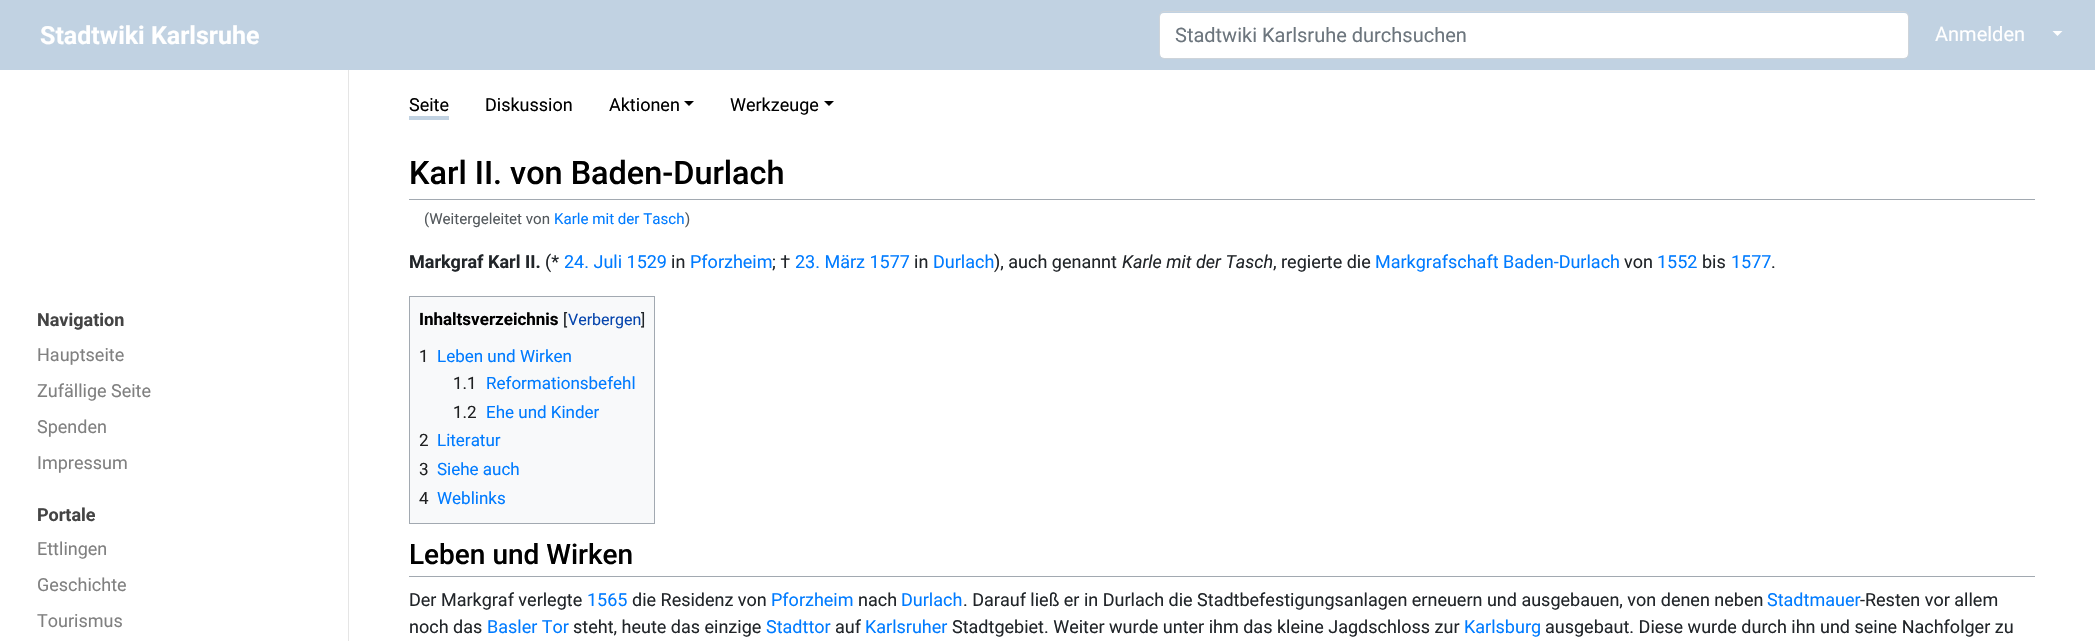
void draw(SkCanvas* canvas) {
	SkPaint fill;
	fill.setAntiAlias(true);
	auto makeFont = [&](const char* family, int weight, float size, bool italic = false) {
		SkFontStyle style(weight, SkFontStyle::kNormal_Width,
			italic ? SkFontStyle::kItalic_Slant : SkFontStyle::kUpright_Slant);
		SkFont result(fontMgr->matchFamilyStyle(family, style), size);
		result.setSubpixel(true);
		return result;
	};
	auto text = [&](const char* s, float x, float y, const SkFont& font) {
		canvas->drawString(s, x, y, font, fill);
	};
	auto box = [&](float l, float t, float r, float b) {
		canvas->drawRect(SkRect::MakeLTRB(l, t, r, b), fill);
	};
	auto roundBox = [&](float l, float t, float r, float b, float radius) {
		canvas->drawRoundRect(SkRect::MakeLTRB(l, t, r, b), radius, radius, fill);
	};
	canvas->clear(0xFFFFFFFF);
	fill.setColor(0xFFC1D2E2);
	box(0, 0, 2095, 70);
	fill.setColor(0xFFFFFFFF);
	roundBox(1160, 13, 1908, 58, 4);
	fill.setStyle(SkPaint::kStroke_Style);
	fill.setStrokeWidth(1);
	fill.setColor(0xFFCED4DA);
	canvas->drawRoundRect(SkRect::MakeLTRB(1159.5f, 11.5f, 1908.5f, 58.5f), 4.5f, 4.5f, fill);
	fill.setStyle(SkPaint::kFill_Style);
	fill.setColor(0xFFFFFFFF);
	canvas->drawPath(SkPathBuilder().moveTo(2052.5f, 31).lineTo(2062.5f, 31).lineTo(2057.5f, 36).close().detach(), fill);
	fill.setColor(0xFFE5E5E5);
	box(348, 70, 349, 641);
	fill.setColor(0xFFC1D2E2);
	box(409, 116, 449, 120);
	fill.setColor(0xFF000000);
	canvas->drawPath(SkPathBuilder().moveTo(684, 101).lineTo(694, 101).lineTo(689, 106).close().detach(), fill);
	canvas->drawPath(SkPathBuilder().moveTo(824, 101).lineTo(834, 101).lineTo(829, 106).close().detach(), fill);
	fill.setColor(0xFFA2A9B1);
	box(409, 199, 2035, 200);
	fill.setColor(0xFFF8F9FA);
	canvas->drawRect(SkRect::MakeLTRB(409.5f, 296.5f, 654.5f, 523.5f), fill);
	fill.setStyle(SkPaint::kStroke_Style);
	fill.setColor(0xFFA2A9B1);
	canvas->drawRect(SkRect::MakeLTRB(409.5f, 296.5f, 654.5f, 523.5f), fill);
	fill.setStyle(SkPaint::kFill_Style);
	box(409, 576, 2035, 577);
	auto font1 = makeFont("Roboto", 700, 25);
	fill.setColor(0xFFFFFFFF);
	text("Stadtwiki Karlsruhe", 40, 44, font1);
	auto font2 = makeFont("Roboto", 400, 20);
	fill.setColor(0xFF6C757D);
	text("Stadtwiki Karlsruhe durchsuchen", 1175, 42, font2);
	fill.setColor(0xFFFFFFFF);
	text("Anmelden", 1935, 41, font2);
	auto font3 = makeFont("Roboto", 700, 18);
	fill.setColor(0xFF444444);
	text("Navigation", 37, 326, font3);
	auto font4 = makeFont("Roboto", 400, 18);
	fill.setColor(0xFF808080);
	text("Hauptseite", 37, 361, font4);
	text("Zufällige Seite", 37, 397, font4);
	text("Spenden", 37, 433, font4);
	text("Impressum", 37, 469, font4);
	fill.setColor(0xFF444444);
	text("Portale", 37, 521, font3);
	fill.setColor(0xFF808080);
	text("Ettlingen", 37, 555, font4);
	text("Geschichte", 37, 591, font4);
	text("Tourismus", 37, 627, font4);
	fill.setColor(0xFF000000);
	text("Seite", 409, 111, font4);
	text("Diskussion", 485, 111, font4);
	text("Aktionen", 609, 111, font4);
	text("Werkzeuge", 730, 111, font4);
	auto font5 = makeFont("Roboto", 500, 32.4f);
	text("Karl II. von Baden-Durlach", 409, 184, font5);
	auto font6 = makeFont("Roboto", 400, 15.1f);
	fill.setColor(0xFF54595D);
	text("(Weitergeleitet von", 424, 224, font6);
	fill.setColor(0xFF007BFF);
	text("Karle mit der Tasch", 554, 224, font6);
	fill.setColor(0xFF54595D);
	text(")", 685, 224, font6);
	fill.setColor(0xFF212529);
	text("Markgraf Karl II.", 409, 268, font3);
	text("(*", 545, 268, font4);
	fill.setColor(0xFF007BFF);
	text("24. Juli 1529", 564, 268, font4);
	fill.setColor(0xFF212529);
	text("in", 671, 268, font4);
	fill.setColor(0xFF007BFF);
	text("Pforzheim", 690, 268, font4);
	fill.setColor(0xFF212529);
	text("; †", 772, 268, font4);
	fill.setColor(0xFF007BFF);
	text("23. März 1577", 795, 268, font4);
	fill.setColor(0xFF212529);
	text("in", 914, 268, font4);
	fill.setColor(0xFF007BFF);
	text("Durlach", 933, 268, font4);
	fill.setColor(0xFF212529);
	text("), auch genannt", 994, 268, font4);
	auto font7 = makeFont("Roboto", 400, 18, true);
	text("Karle mit der Tasch", 1122, 268, font7);
	text(", regierte die", 1273, 268, font4);
	fill.setColor(0xFF007BFF);
	text("Markgrafschaft Baden-Durlach", 1375, 268, font4);
	fill.setColor(0xFF212529);
	text("von", 1624, 268, font4);
	fill.setColor(0xFF007BFF);
	text("1552", 1657, 268, font4);
	fill.setColor(0xFF212529);
	text("bis", 1702, 268, font4);
	fill.setColor(0xFF007BFF);
	text("1577", 1731, 268, font4);
	fill.setColor(0xFF212529);
	text(".", 1771, 268, font4);
	auto font8 = makeFont("Roboto", 700, 17);
	fill.setColor(0xFF000000);
	text("Inhaltsverzeichnis", 419, 325, font8);
	auto font9 = makeFont("Roboto", 400, 16);
	fill.setColor(0xFF212529);
	text("[", 563, 325, font9);
	fill.setColor(0xFF0645AD);
	text("Verbergen", 568, 325, font9);
	fill.setColor(0xFF212529);
	text("]", 641, 325, font9);
	auto font10 = makeFont("Roboto", 400, 17);
	fill.setColor(0xFF202122);
	text("1", 419, 362, font10);
	fill.setColor(0xFF007BFF);
	text("Leben und Wirken", 437, 362, font10);
	fill.setColor(0xFF202122);
	text("1.1", 453, 389, font10);
	fill.setColor(0xFF007BFF);
	text("Reformationsbefehl", 486, 389, font10);
	fill.setColor(0xFF202122);
	text("1.2", 453, 418, font10);
	fill.setColor(0xFF007BFF);
	text("Ehe und Kinder", 486, 418, font10);
	fill.setColor(0xFF202122);
	text("2", 419, 446, font10);
	fill.setColor(0xFF007BFF);
	text("Literatur", 437, 446, font10);
	fill.setColor(0xFF202122);
	text("3", 419, 475, font10);
	fill.setColor(0xFF007BFF);
	text("Siehe auch", 437, 475, font10);
	fill.setColor(0xFF202122);
	text("4", 419, 504, font10);
	fill.setColor(0xFF007BFF);
	text("Weblinks", 437, 504, font10);
	auto font11 = makeFont("Roboto", 500, 28);
	fill.setColor(0xFF000000);
	text("Leben und Wirken", 409, 564, font11);
	fill.setColor(0xFF212529);
	text("Der Markgraf verlegte", 409, 606, font4);
	fill.setColor(0xFF007BFF);
	text("1565", 587, 606, font4);
	fill.setColor(0xFF212529);
	text("die Residenz von", 632, 606, font4);
	fill.setColor(0xFF007BFF);
	text("Pforzheim", 771, 606, font4);
	fill.setColor(0xFF212529);
	text("nach", 858, 606, font4);
	fill.setColor(0xFF007BFF);
	text("Durlach", 901, 606, font4);
	fill.setColor(0xFF212529);
	text(". Darauf ließ er in Durlach die Stadtbefestigungsanlagen erneuern und ausgebauen, von denen neben", 963, 606, font4);
	fill.setColor(0xFF007BFF);
	text("Stadtmauer", 1767, 606, font4);
	fill.setColor(0xFF212529);
	text("-Resten vor allem", 1860, 606, font4);
	text("noch das", 409, 633, font4);
	fill.setColor(0xFF007BFF);
	text("Basler Tor", 487, 633, font4);
	fill.setColor(0xFF212529);
	text("steht, heute das einzige", 573, 633, font4);
	fill.setColor(0xFF007BFF);
	text("Stadttor", 766, 633, font4);
	fill.setColor(0xFF212529);
	text("auf", 835, 633, font4);
	fill.setColor(0xFF007BFF);
	text("Karlsruher", 865, 633, font4);
	fill.setColor(0xFF212529);
	text("Stadtgebiet. Weiter wurde unter ihm das kleine Jagdschloss zur", 952, 633, font4);
	fill.setColor(0xFF007BFF);
	text("Karlsburg", 1464, 633, font4);
	fill.setColor(0xFF212529);
	text("ausgebaut. Diese wurde durch ihn und seine Nachfolger zu", 1545, 633, font4);
}
